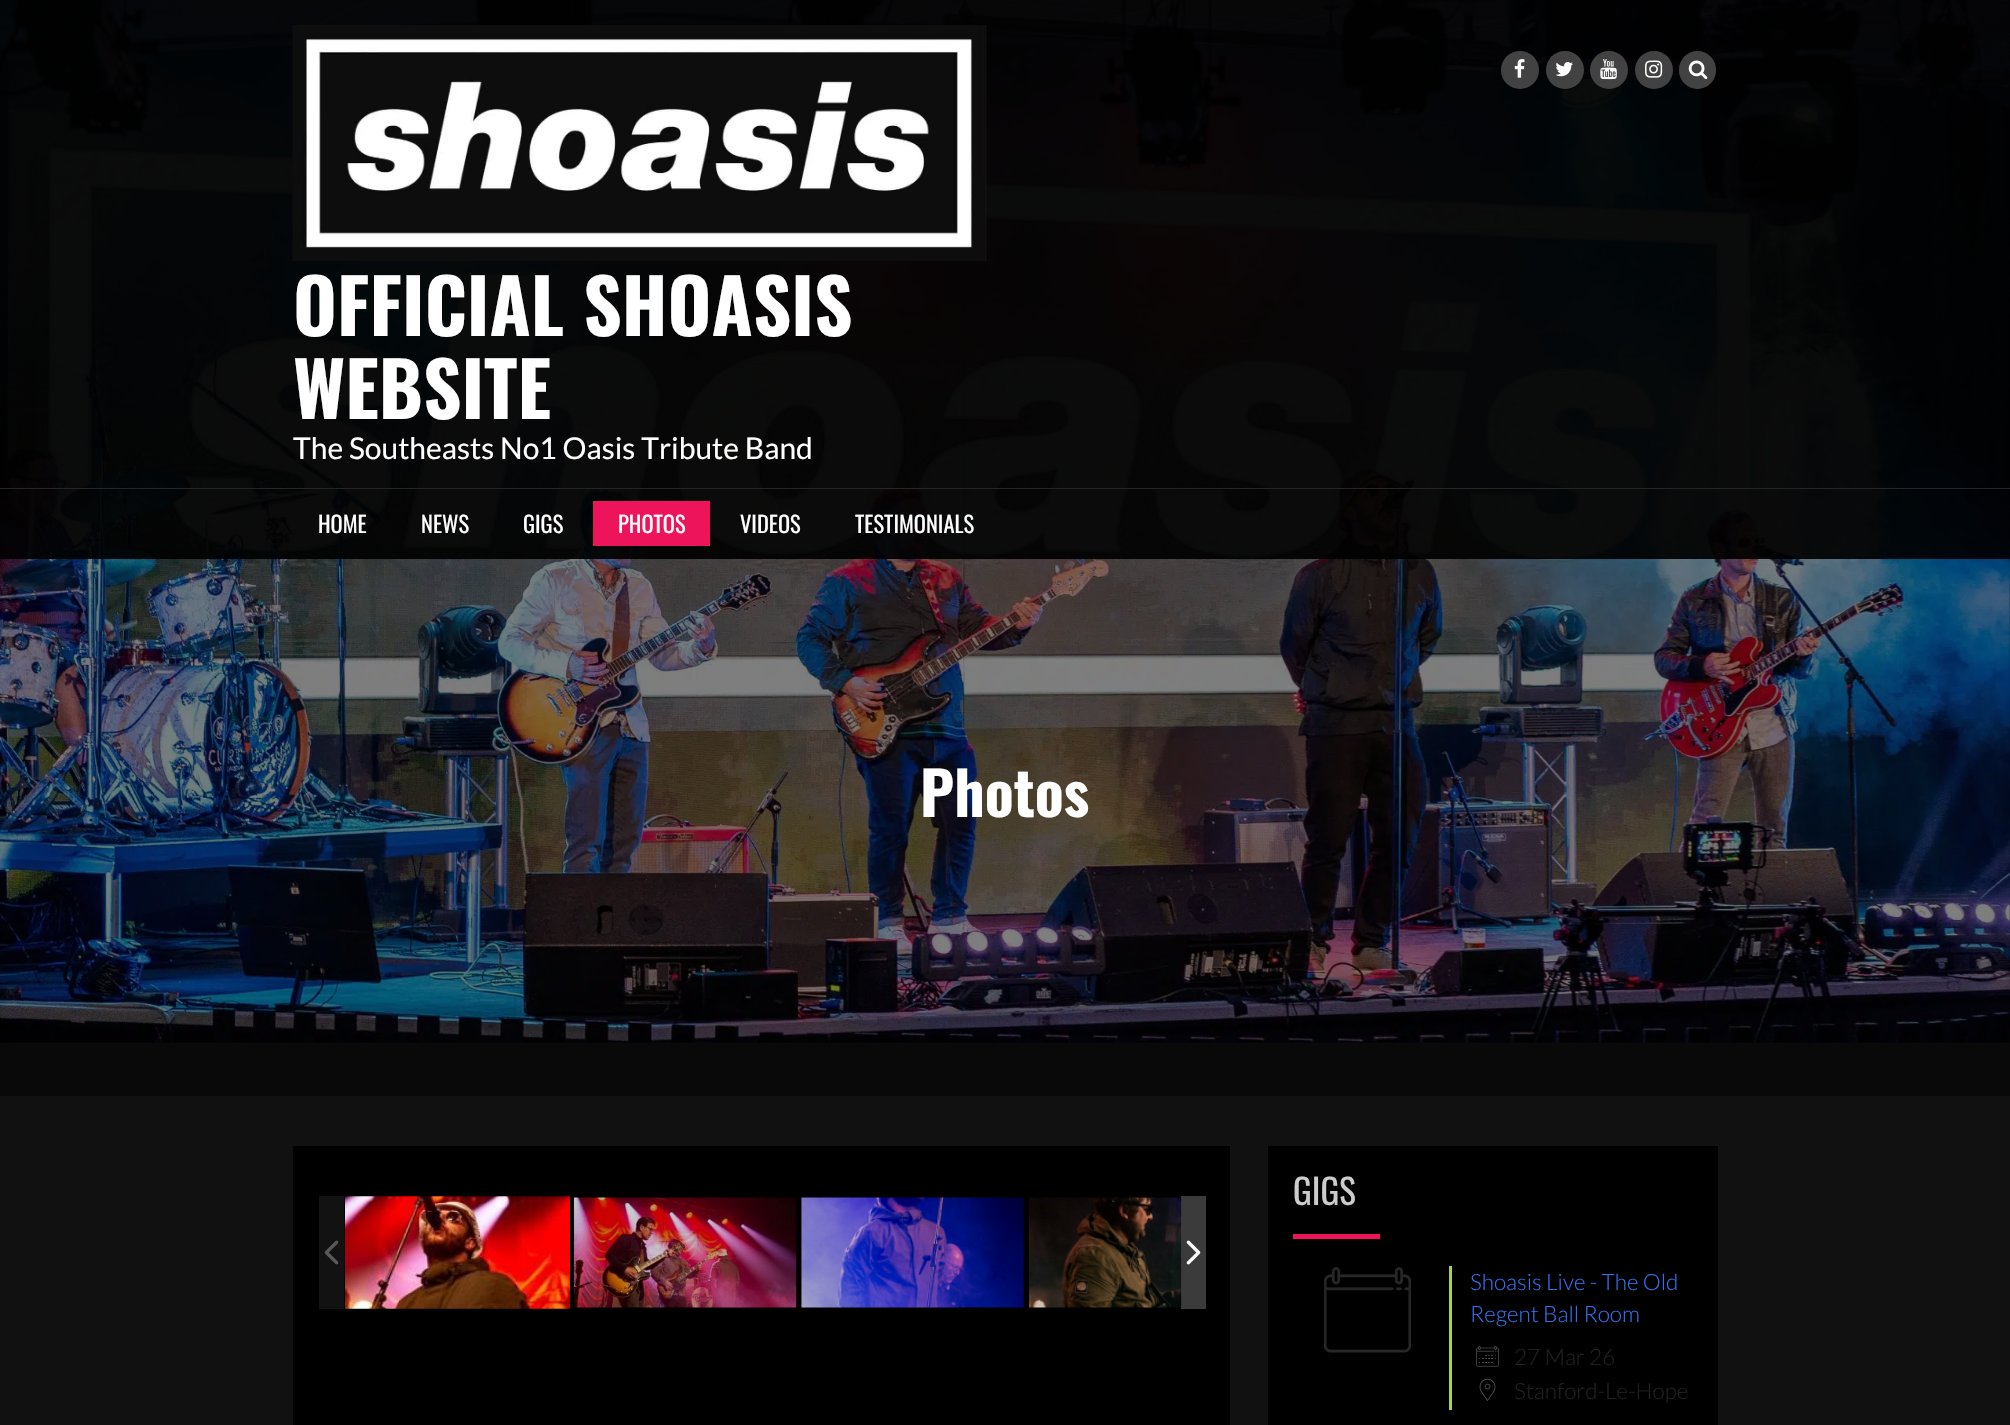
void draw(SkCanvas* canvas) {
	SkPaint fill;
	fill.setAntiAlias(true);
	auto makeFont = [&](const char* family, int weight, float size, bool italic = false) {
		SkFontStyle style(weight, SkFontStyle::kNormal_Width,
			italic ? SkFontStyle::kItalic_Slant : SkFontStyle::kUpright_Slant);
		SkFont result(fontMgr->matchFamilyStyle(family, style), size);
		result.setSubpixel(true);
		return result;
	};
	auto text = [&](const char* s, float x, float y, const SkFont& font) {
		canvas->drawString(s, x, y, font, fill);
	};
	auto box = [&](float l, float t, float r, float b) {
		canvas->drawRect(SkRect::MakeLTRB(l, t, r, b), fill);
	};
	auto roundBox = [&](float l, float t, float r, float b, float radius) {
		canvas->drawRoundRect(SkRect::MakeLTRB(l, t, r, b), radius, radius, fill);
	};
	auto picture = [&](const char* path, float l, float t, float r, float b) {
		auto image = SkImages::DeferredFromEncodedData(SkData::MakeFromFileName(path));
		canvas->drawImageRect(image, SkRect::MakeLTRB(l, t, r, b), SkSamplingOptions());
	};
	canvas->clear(0xFF111111);
	picture("image0.png", 0, 0, 2010, 1043);
	fill.setColor(0xCC000000);
	box(0, 0, 2010, 559);
	box(0, 0, 2010, 559);
	fill.setColor(0xFF252525);
	box(0, 488, 2010, 489);
	fill.setColor(0xFF424242);
	canvas->drawCircle(1520, 70, 19, fill);
	picture("image1.png", 1514, 59, 1525, 78);
	canvas->drawCircle(1565, 70, 19, fill);
	picture("image2.png", 1555, 62, 1573, 77);
	canvas->drawCircle(1609, 70, 19, fill);
	picture("image3.png", 1600, 59, 1617, 80);
	canvas->drawCircle(1654, 70, 19, fill);
	picture("image4.png", 1645, 60, 1663, 78);
	roundBox(1679, 51, 1716, 89, 18.5f);
	picture("image5.png", 1688, 60, 1708, 80);
	picture("image6.png", 292, 25, 987, 261);
	fill.setColor(0xFFED145B);
	box(593, 501, 710, 546);
	fill.setColor(0x80000000);
	box(0, 559, 2010, 1096);
	fill.setColor(0xFF000000);
	box(293, 1146, 1230, 1425);
	fill.setColor(0xFF121212);
	box(319, 1196, 344, 1309);
	picture("image7.png", 324, 1240, 339, 1265);
	picture("image8.png", 345, 1196, 570, 1309);
	picture("image9.png", 573, 1197, 797, 1308);
	picture("image10.png", 801, 1197, 1024, 1308);
	fill.setColor(0xFF3B3B3B);
	box(1181, 1196, 1206, 1309);
	picture("image11.png", 1028, 1197, 1182, 1308);
	picture("image12.png", 1186, 1240, 1201, 1265);
	fill.setColor(0xFF000000);
	box(1268, 1146, 1718, 1425);
	fill.setColor(0xFFED145B);
	box(1293, 1234, 1380, 1239);
	picture("image13.png", 1324, 1267, 1411, 1353);
	fill.setColor(0xFFA8D144);
	box(1449, 1266, 1452, 1410);
	picture("image14.png", 1476, 1345, 1499, 1367);
	picture("image15.png", 1479, 1379, 1496, 1401);
	auto font1 = makeFont("Oswald", 700, 75);
	fill.setColor(0xFFFFFFFF);
	text("OFFICIAL SHOASIS", 293, 336, font1);
	text("WEBSITE", 293, 419, font1);
	auto font2 = makeFont("Lato", 400, 30);
	text("The Southeasts No1 Oasis Tribute Band", 293, 459, font2);
	auto font3 = makeFont("Oswald", 400, 22.5f);
	text("HOME", 318, 533, font3);
	text("NEWS", 421, 533, font3);
	text("GIGS", 523, 533, font3);
	text("PHOTOS", 618, 533, font3);
	text("VIDEOS", 740, 533, font3);
	text("TESTIMONIALS", 855, 533, font3);
	auto font4 = makeFont("Oswald", 700, 60);
	text("Photos", 920, 817, font4);
	auto font5 = makeFont("Oswald", 400, 35);
	fill.setColor(0xFFCCCCCC);
	text("GIGS", 1293, 1205, font5);
	auto font6 = makeFont("Lato", 300, 22.5f);
	fill.setColor(0xFF3372F0);
	text("Shoasis Live - The Old", 1470, 1290, font6);
	text("Regent Ball Room", 1470, 1322, font6);
	fill.setColor(0xFF212121);
	text("27 Mar 26", 1514, 1365, font6);
	text("Stanford-Le-Hope", 1514, 1399, font6);
}
